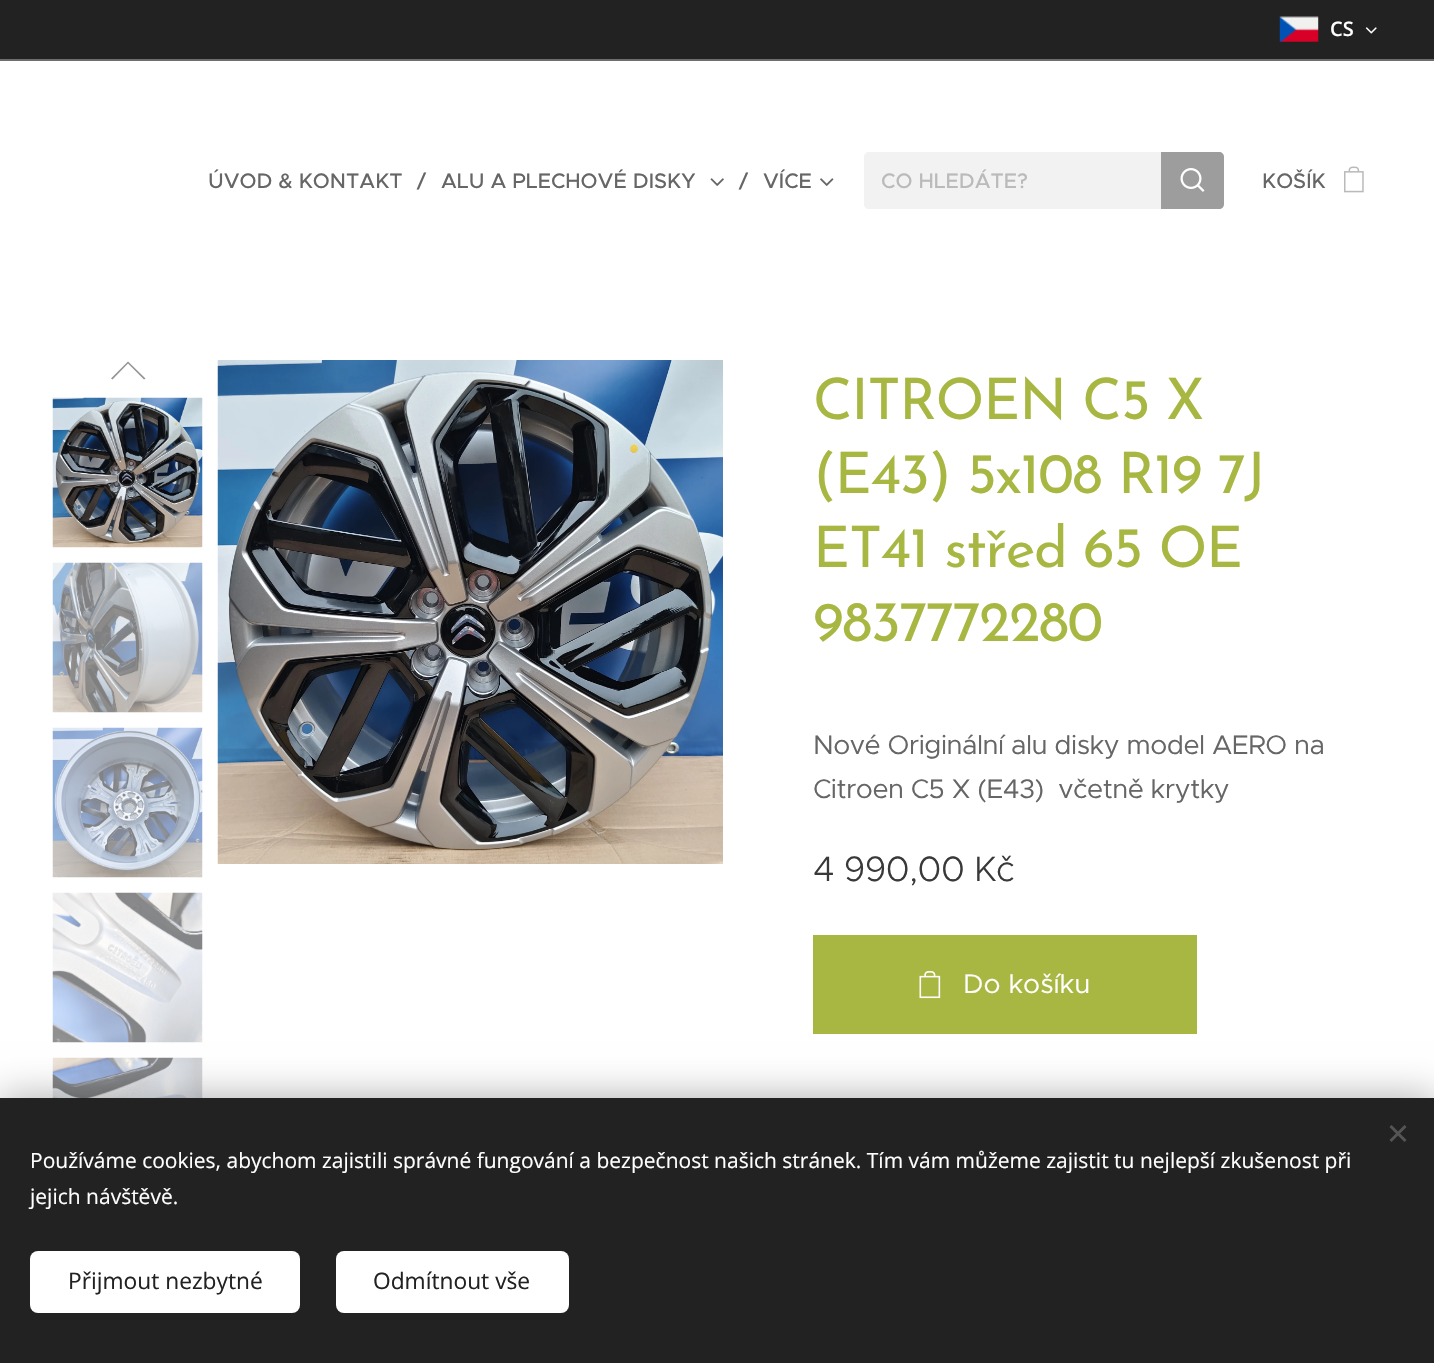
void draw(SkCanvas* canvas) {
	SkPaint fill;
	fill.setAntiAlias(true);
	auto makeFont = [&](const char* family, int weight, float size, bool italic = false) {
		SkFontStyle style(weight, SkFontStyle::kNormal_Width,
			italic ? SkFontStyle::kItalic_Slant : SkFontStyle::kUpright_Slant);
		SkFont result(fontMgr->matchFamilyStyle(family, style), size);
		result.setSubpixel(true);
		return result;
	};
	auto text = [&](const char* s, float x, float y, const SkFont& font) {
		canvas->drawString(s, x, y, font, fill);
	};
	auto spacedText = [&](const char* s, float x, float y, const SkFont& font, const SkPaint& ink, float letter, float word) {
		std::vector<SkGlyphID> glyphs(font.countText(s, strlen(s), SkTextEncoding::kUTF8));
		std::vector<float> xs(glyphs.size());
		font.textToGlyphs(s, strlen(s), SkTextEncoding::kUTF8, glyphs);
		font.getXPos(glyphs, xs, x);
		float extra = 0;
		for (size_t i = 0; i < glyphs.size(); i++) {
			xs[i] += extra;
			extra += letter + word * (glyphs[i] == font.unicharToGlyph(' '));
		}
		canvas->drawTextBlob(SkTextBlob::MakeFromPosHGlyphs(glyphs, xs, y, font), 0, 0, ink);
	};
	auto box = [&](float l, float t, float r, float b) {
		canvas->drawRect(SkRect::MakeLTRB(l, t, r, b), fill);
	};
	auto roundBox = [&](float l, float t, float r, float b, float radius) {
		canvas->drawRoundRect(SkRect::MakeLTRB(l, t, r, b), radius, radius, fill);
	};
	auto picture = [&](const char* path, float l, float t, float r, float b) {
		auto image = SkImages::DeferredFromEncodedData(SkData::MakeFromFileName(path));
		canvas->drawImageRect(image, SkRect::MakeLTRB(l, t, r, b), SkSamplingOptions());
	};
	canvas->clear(0xFFFFFFFF);
	fill.setColor(0xFF222222);
	box(0, 0, 1434, 59);
	picture("image0.png", 1279, 16, 1319, 42);
	picture("image1.png", 1365, 27, 1377, 34);
	fill.setColor(0xFF6E6E6E);
	box(0, 59, 1434, 61);
	picture("image2.png", 710, 178, 724, 186);
	picture("image3.png", 820, 178, 834, 186);
	fill.setColor(0xFFF2F2F2);
	canvas->drawPath(SkPathBuilder().moveTo(869, 152).lineTo(1161, 152).lineTo(1161, 209).lineTo(869, 209).cubicTo(866, 209, 864, 207, 864, 204).lineTo(864, 157).cubicTo(864, 154, 866, 152, 869, 152).close().detach(), fill);
	fill.setColor(0xFF9D9D9D);
	canvas->drawPath(SkPathBuilder().moveTo(1161, 152).lineTo(1219, 152).cubicTo(1222, 152, 1224, 154, 1224, 157).lineTo(1224, 204).cubicTo(1224, 207, 1222, 209, 1219, 209).lineTo(1161, 209).close().detach(), fill);
	picture("image4.png", 1180, 168, 1205, 192);
	picture("image5.png", 1344, 166, 1364, 193);
	fill.setColor(0xFF949494);
	canvas->drawPath(SkPathBuilder().moveTo(111, 378.5f).lineTo(112.5f, 379.5f).lineTo(128, 363.5f).lineTo(144, 379.5f).lineTo(145.5f, 378.5f).lineTo(128, 361.5f).close().detach(), fill);
	picture("image6.png", 52, 397, 203, 548);
	picture("image7.png", 52, 562, 203, 713);
	picture("image8.png", 52, 727, 203, 878);
	picture("image9.png", 52, 892, 203, 1043);
	picture("image10.png", 52, 1057, 203, 1098);
	picture("image11.png", 217, 360, 723, 864);
	fill.setColor(0xFFA8B741);
	box(813, 935, 1197, 1034);
	picture("image12.png", 919, 971, 941, 999);
	fill.setColor(0x54000000);
	fill.setMaskFilter(SkMaskFilter::MakeBlur(kNormal_SkBlurStyle, 19));
	canvas->drawRect(SkRect::MakeLTRB(0, 1098, 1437, 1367), fill);
	fill.setMaskFilter(nullptr);
	fill.setColor(0xFF222222);
	box(0, 1098, 1434, 1363);
	fill.setColor(0xFF555555);
	canvas->drawPath(SkPathBuilder().moveTo(1389.5f, 1140).lineTo(1404.5f, 1125).lineTo(1406.5f, 1127).lineTo(1391.5f, 1142).close().detach(), fill);
	canvas->drawPath(SkPathBuilder().moveTo(1391.5f, 1125).lineTo(1406.5f, 1140).lineTo(1404.5f, 1142).lineTo(1389.5f, 1127).close().detach(), fill);
	fill.setColor(0xFFFFFFFF);
	roundBox(30, 1251, 300, 1313, 8);
	roundBox(336, 1251, 569, 1313, 8);
	auto font1 = makeFont("Open Sans", 600, 20);
	text("CS", 1330, 36, font1);
	auto font2 = makeFont("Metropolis", 500, 21);
	fill.setColor(0xFF666666);
	text("ÚVOD & KONTAKT", 208, 188, font2);
	text("/", 417, 188, font2);
	text("ALU A PLECHOVÉ DISKY", 441, 188, font2);
	text("/", 739, 188, font2);
	text("VÍCE", 763, 188, font2);
	fill.setColor(0xFFBABABA);
	text("CO HLEDÁTE?", 881, 188, font2);
	fill.setColor(0xFF666666);
	text("KOŠÍK", 1262, 188, font2);
	auto font3 = makeFont("Josefin Sans", 400, 57);
	fill.setColor(0xFFA8B741);
	spacedText("CITROEN C5 X", 813, 419, font3, fill, -1.25f, 0);
	spacedText("(E43) 5x108 R19 7J", 813, 493, font3, fill, -1.25f, 0);
	spacedText("ET41 střed 65 OE", 813, 567, font3, fill, -1.25f, 0);
	spacedText("9837772280", 813, 641, font3, fill, -1.25f, 0);
	auto font4 = makeFont("Metropolis", 400, 27);
	fill.setColor(0xFF666666);
	spacedText("Nové Originální alu disky model AERO na", 813, 754, font4, fill, -0.5f, 0);
	spacedText("Citroen C5 X (E43)  včetně krytky", 813, 798, font4, fill, -0.5f, 0);
	auto font5 = makeFont("Metropolis", 300, 35.25f);
	fill.setColor(0xFF393939);
	spacedText("4 990,00 Kč", 813, 881, font5, fill, -0.5f, 0);
	fill.setColor(0xFFFFFFFF);
	text("Do košíku", 963, 993, font4);
	auto font6 = makeFont("Open Sans", 400, 21);
	text("Používáme cookies, abychom zajistili správné fungování a bezpečnost našich stránek. Tím vám můžeme zajistit tu nejlepší zkušenost při", 30, 1168, font6);
	text("jejich návštěvě.", 30, 1204, font6);
	auto font7 = makeFont("Open Sans", 400, 22.75f);
	fill.setColor(0xFF222222);
	text("Přijmout nezbytné", 68, 1289, font7);
	text("Odmítnout vše", 373, 1289, font7);
}
